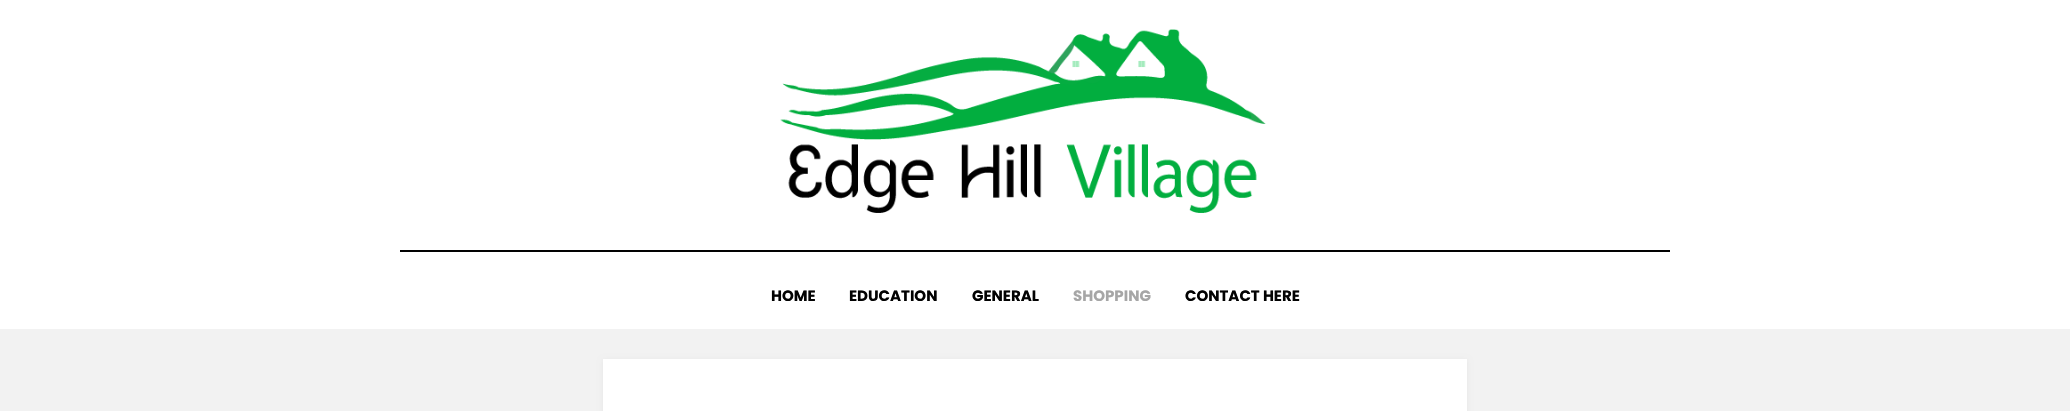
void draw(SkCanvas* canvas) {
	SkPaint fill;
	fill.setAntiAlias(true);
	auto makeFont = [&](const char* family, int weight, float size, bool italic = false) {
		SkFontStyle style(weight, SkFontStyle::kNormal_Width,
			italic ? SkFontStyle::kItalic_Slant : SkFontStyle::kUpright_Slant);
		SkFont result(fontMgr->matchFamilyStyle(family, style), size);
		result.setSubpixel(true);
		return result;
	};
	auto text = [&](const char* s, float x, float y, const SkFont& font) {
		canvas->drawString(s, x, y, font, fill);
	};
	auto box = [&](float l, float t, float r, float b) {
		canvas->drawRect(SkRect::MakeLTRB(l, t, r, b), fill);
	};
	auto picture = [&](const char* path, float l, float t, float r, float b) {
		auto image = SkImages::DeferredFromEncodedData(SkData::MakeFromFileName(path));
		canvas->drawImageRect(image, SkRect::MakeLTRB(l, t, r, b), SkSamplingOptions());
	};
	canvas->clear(0xFFF2F2F2);
	fill.setColor(0xFFFFFFFF);
	box(0, 0, 2070, 329);
	picture("image0.png", 780, 29, 1266, 213);
	fill.setColor(0xFF020202);
	box(400, 250, 1670, 252);
	fill.setColor(0x0D000001);
	fill.setMaskFilter(SkMaskFilter::MakeBlur(kNormal_SkBlurStyle, 2.5f));
	canvas->drawRect(SkRect::MakeLTRB(603, 360, 1467, 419), fill);
	fill.setMaskFilter(nullptr);
	fill.setColor(0xFFFFFFFF);
	box(603, 359, 1467, 411);
	auto font1 = makeFont("Poppins", 700, 15);
	fill.setColor(0xFF020202);
	text("HOME", 771, 301, font1);
	text("EDUCATION", 849, 301, font1);
	text("GENERAL", 972, 301, font1);
	fill.setColor(0xFFA6A6A6);
	text("SHOPPING", 1073, 301, font1);
	fill.setColor(0xFF020202);
	text("CONTACT HERE", 1185, 301, font1);
}
